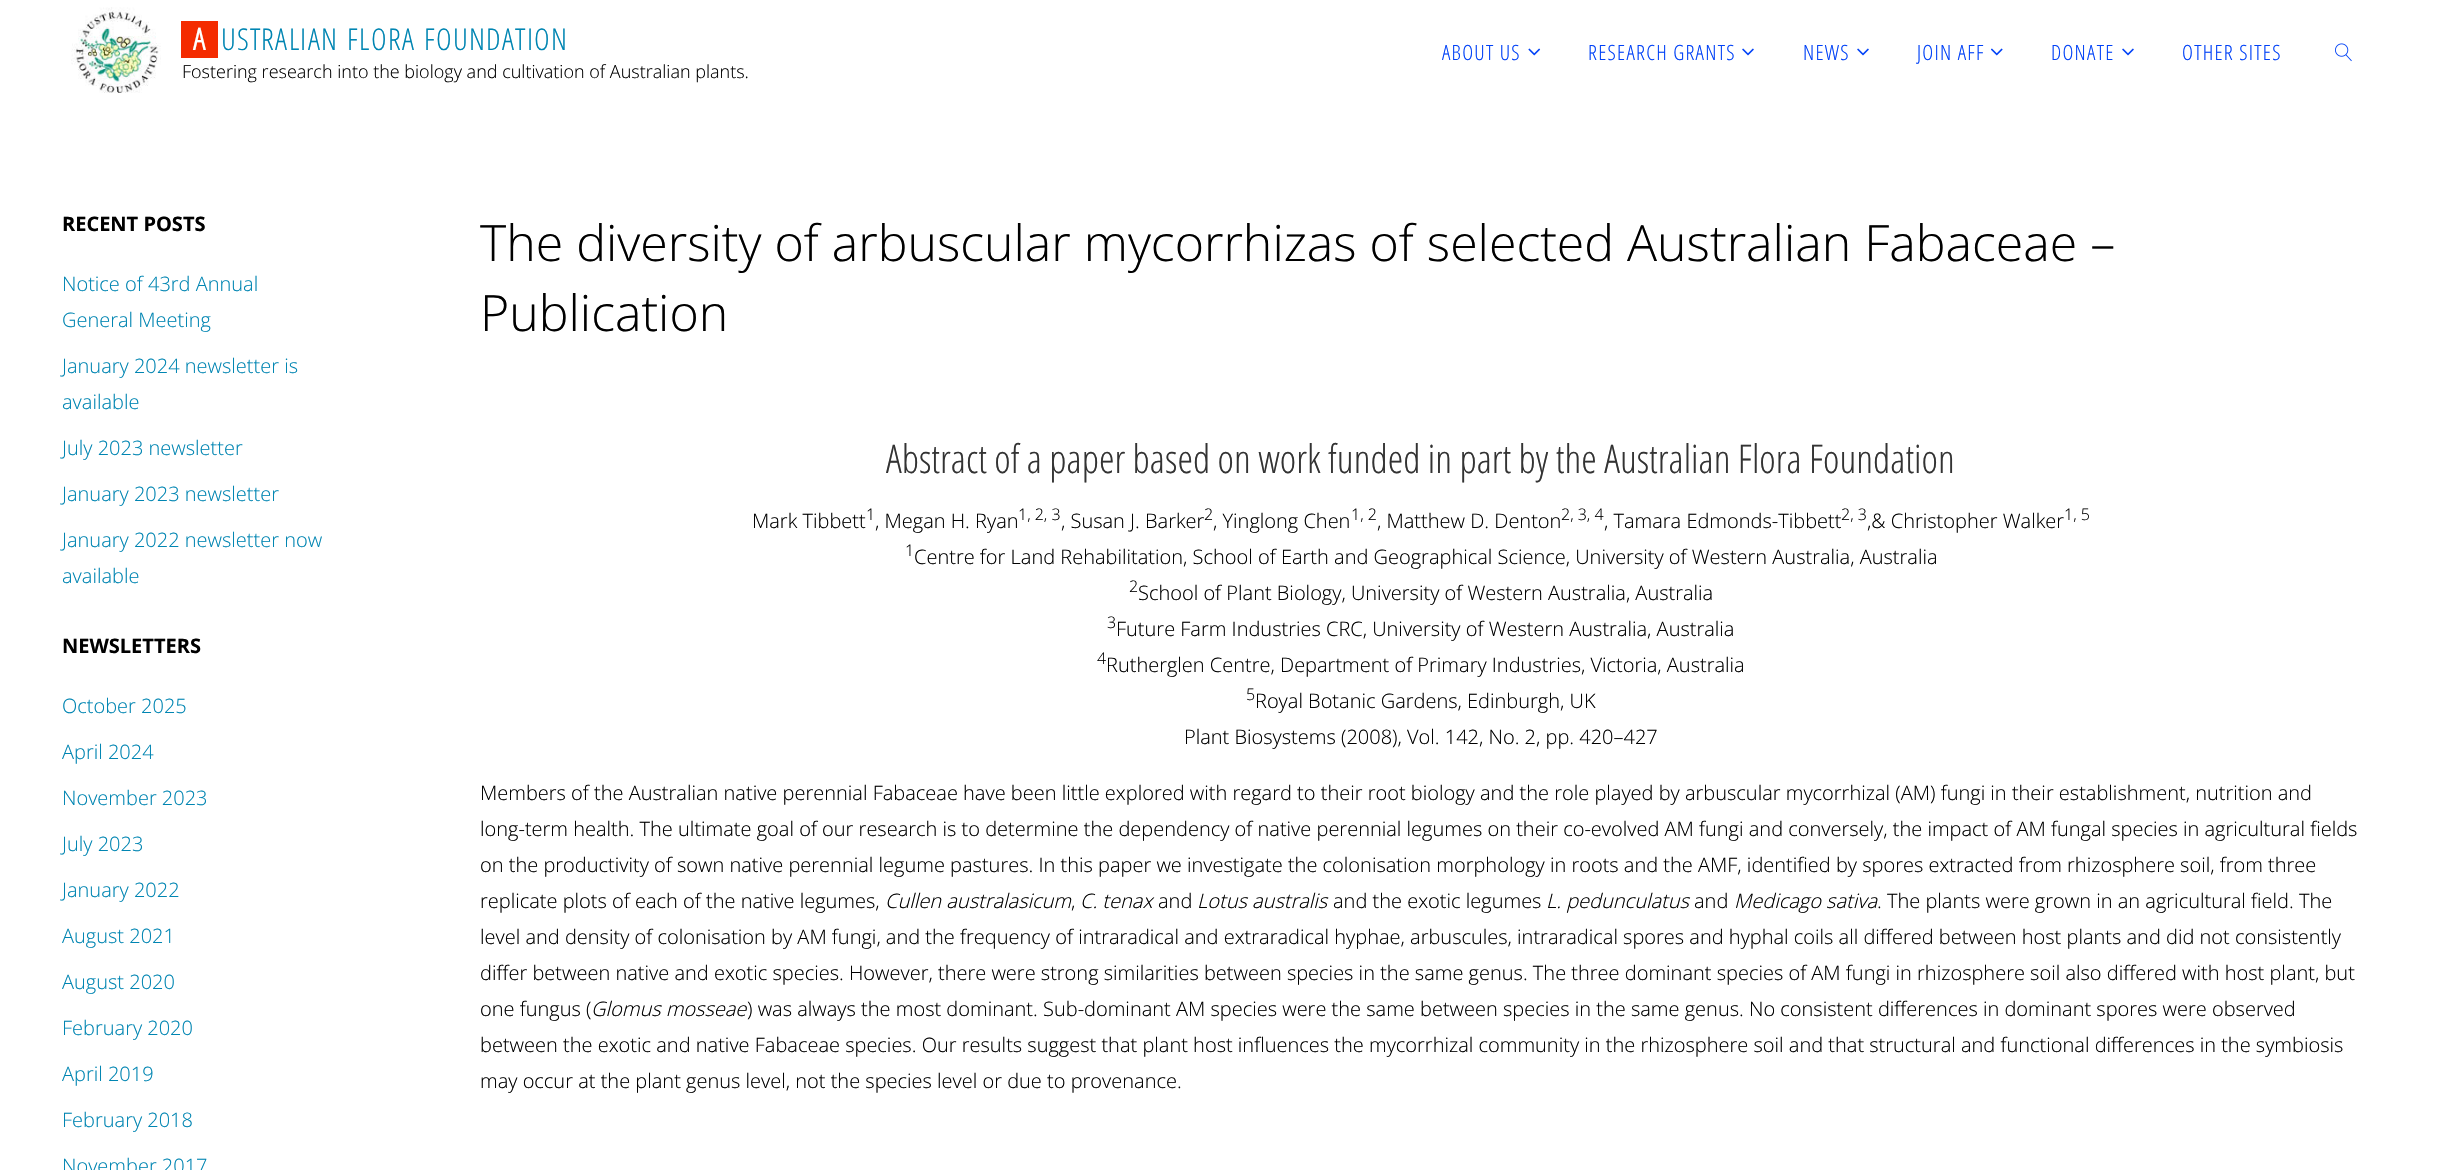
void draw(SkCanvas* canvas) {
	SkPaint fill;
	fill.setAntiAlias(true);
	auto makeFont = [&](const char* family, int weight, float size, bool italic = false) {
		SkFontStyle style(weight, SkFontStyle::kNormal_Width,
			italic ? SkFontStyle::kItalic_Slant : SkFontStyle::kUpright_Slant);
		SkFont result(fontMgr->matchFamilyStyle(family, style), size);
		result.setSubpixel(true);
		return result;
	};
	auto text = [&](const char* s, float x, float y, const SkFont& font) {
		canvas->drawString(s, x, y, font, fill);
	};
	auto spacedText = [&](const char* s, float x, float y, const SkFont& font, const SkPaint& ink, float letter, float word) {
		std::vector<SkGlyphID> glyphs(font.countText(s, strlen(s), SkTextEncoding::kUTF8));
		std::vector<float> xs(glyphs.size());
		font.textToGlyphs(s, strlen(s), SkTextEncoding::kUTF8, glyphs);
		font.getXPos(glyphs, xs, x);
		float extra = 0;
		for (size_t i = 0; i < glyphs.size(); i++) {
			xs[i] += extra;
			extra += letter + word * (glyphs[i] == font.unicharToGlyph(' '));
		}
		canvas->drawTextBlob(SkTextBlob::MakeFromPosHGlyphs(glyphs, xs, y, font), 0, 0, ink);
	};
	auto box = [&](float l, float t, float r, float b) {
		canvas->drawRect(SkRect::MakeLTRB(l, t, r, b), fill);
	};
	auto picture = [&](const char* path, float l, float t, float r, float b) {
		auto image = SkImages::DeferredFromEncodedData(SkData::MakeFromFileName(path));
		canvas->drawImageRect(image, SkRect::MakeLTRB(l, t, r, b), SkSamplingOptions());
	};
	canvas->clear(0xFFFFFFFF);
	picture("image0.png", 71, 7, 161, 93);
	fill.setColor(0xFFF42B00);
	box(181, 21, 218, 58);
	picture("image1.png", 1528, 48, 1541, 56);
	picture("image2.png", 1742, 48, 1754, 56);
	picture("image2.png", 1857, 48, 1869, 56);
	picture("image3.png", 1991, 48, 2003, 56);
	picture("image2.png", 2122, 48, 2134, 56);
	picture("image4.png", 2335, 43, 2352, 62);
	auto font1 = makeFont("Open Sans Condensed", 700, 30);
	fill.setColor(0xFFFFFFFF);
	text("A", 193, 50, font1);
	auto font2 = makeFont("Open Sans Condensed", 300, 30);
	fill.setColor(0xFF0085B2);
	text("U", 221, 50, font2);
	text("S", 237, 50, font2);
	text("T", 250, 50, font2);
	text("R", 261, 50, font2);
	text("A", 275, 50, font2);
	text("L", 289, 50, font2);
	text("I", 300, 50, font2);
	text("A", 308, 50, font2);
	text("N", 321, 50, font2);
	text("F", 347, 50, font2);
	text("L", 359, 50, font2);
	text("O", 371, 50, font2);
	text("R", 388, 50, font2);
	text("A", 402, 50, font2);
	text("F", 424, 50, font2);
	text("O", 436, 50, font2);
	text("U", 453, 50, font2);
	text("N", 469, 50, font2);
	text("D", 486, 50, font2);
	text("A", 502, 50, font2);
	text("T", 515, 50, font2);
	text("I", 527, 50, font2);
	text("O", 534, 50, font2);
	text("N", 551, 50, font2);
	auto font3 = makeFont("Open Sans", 300, 18);
	fill.setColor(0xFF000000);
	text("Fostering research into the biology and cultivation of Australian plants.", 182, 78, font3);
	auto font4 = makeFont("Open Sans Condensed", 300, 21);
	fill.setColor(0xFF0041F7);
	spacedText("ABOUT US", 1442, 60, font4, fill, 1.25f, 0);
	spacedText("RESEARCH GRANTS", 1588, 60, font4, fill, 1.25f, 0);
	spacedText("NEWS", 1803, 60, font4, fill, 1.25f, 0);
	spacedText("JOIN AFF", 1917, 60, font4, fill, 1.25f, 0);
	spacedText("DONATE", 2051, 60, font4, fill, 1.25f, 0);
	spacedText("OTHER SITES", 2182, 60, font4, fill, 1.25f, 0);
	auto font5 = makeFont("Open Sans", 700, 20);
	fill.setColor(0xFF000000);
	text("RECENT POSTS", 62, 231, font5);
	auto font6 = makeFont("Open Sans", 300, 20);
	fill.setColor(0xFF0085B2);
	text("Notice of 43rd Annual", 62, 291, font6);
	text("General Meeting", 62, 327, font6);
	text("January 2024 newsletter is", 62, 373, font6);
	text("available", 62, 409, font6);
	text("July 2023 newsletter", 62, 455, font6);
	text("January 2023 newsletter", 62, 501, font6);
	text("January 2022 newsletter now", 62, 547, font6);
	text("available", 62, 583, font6);
	fill.setColor(0xFF000000);
	text("NEWSLETTERS", 62, 653, font5);
	fill.setColor(0xFF0085B2);
	text("October 2025", 62, 713, font6);
	text("April 2024", 62, 759, font6);
	text("November 2023", 62, 805, font6);
	text("July 2023", 62, 851, font6);
	text("January 2022", 62, 897, font6);
	text("August 2021", 62, 943, font6);
	text("August 2020", 62, 989, font6);
	text("February 2020", 62, 1035, font6);
	text("April 2019", 62, 1081, font6);
	text("February 2018", 62, 1127, font6);
	text("November 2017", 62, 1173, font6);
	auto font7 = makeFont("Open Sans", 300, 50);
	fill.setColor(0xFF000000);
	text("The diversity of arbuscular mycorrhizas of selected Australian Fabaceae –", 480, 261, font7);
	text("Publication", 480, 331, font7);
	auto font8 = makeFont("Open Sans Condensed", 300, 39.5f);
	fill.setColor(0xFF333333);
	text("Abstract of a paper based on work funded in part by the Australian Flora Foundation", 886, 473, font8);
	fill.setColor(0xFF000000);
	text("Mark Tibbett", 752, 528, font6);
	auto font9 = makeFont("Open Sans", 300, 16);
	text("1", 866, 520, font9);
	text(", Megan H. Ryan", 875, 528, font6);
	text("1, 2, 3", 1018, 520, font9);
	text(", Susan J. Barker", 1061, 528, font6);
	text("2", 1204, 520, font9);
	text(", Yinglong Chen", 1213, 528, font6);
	text("1, 2", 1351, 520, font9);
	text(", Matthew D. Denton", 1377, 528, font6);
	text("2, 3, 4", 1561, 520, font9);
	text(", Tamara Edmonds-Tibbett", 1604, 528, font6);
	text("2, 3", 1841, 520, font9);
	text(",& Christopher Walker", 1867, 528, font6);
	text("1, 5", 2064, 520, font9);
	text("1", 905, 556, font9);
	text("Centre for Land Rehabilitation, School of Earth and Geographical Science, University of Western Australia, Australia", 914, 564, font6);
	text("2", 1129, 592, font9);
	text("School of Plant Biology, University of Western Australia, Australia", 1138, 600, font6);
	text("3", 1107, 628, font9);
	text("Future Farm Industries CRC, University of Western Australia, Australia", 1116, 636, font6);
	text("4", 1097, 664, font9);
	text("Rutherglen Centre, Department of Primary Industries, Victoria, Australia", 1106, 672, font6);
	text("5", 1246, 700, font9);
	text("Royal Botanic Gardens, Edinburgh, UK", 1255, 708, font6);
	text("Plant Biosystems (2008), Vol. 142, No. 2, pp. 420–427", 1184, 744, font6);
	text("Members of the Australian native perennial Fabaceae have been little explored with regard to their root biology and the role played by arbuscular mycorrhizal (AM) fungi in their establishment, nutrition and", 480, 800, font6);
	text("long-term health. The ultimate goal of our research is to determine the dependency of native perennial legumes on their co-evolved AM fungi and conversely, the impact of AM fungal species in agricultural fields", 480, 836, font6);
	text("on the productivity of sown native perennial legume pastures. In this paper we investigate the colonisation morphology in roots and the AMF, identified by spores extracted from rhizosphere soil, from three", 480, 872, font6);
	text("replicate plots of each of the native legumes,", 480, 908, font6);
	auto font10 = makeFont("Open Sans", 300, 20, true);
	text("Cullen australasicum", 885, 908, font10);
	text(",", 1071, 908, font6);
	text("C. tenax", 1080, 908, font10);
	text("and", 1158, 908, font6);
	text("Lotus australis", 1197, 908, font10);
	text("and the exotic legumes", 1333, 908, font6);
	text("L. pedunculatus", 1546, 908, font10);
	text("and", 1694, 908, font6);
	text("Medicago sativa", 1734, 908, font10);
	text(". The plants were grown in an agricultural field. The", 1877, 908, font6);
	text("level and density of colonisation by AM fungi, and the frequency of intraradical and extraradical hyphae, arbuscules, intraradical spores and hyphal coils all differed between host plants and did not consistently", 480, 944, font6);
	text("differ between native and exotic species. However, there were strong similarities between species in the same genus. The three dominant species of AM fungi in rhizosphere soil also differed with host plant, but", 480, 980, font6);
	text("one fungus (", 480, 1016, font6);
	text("Glomus mosseae", 591, 1016, font10);
	text(") was always the most dominant. Sub-dominant AM species were the same between species in the same genus. No consistent differences in dominant spores were observed", 747, 1016, font6);
	text("between the exotic and native Fabaceae species. Our results suggest that plant host influences the mycorrhizal community in the rhizosphere soil and that structural and functional differences in the symbiosis", 480, 1052, font6);
	text("may occur at the plant genus level, not the species level or due to provenance.", 480, 1088, font6);
}
